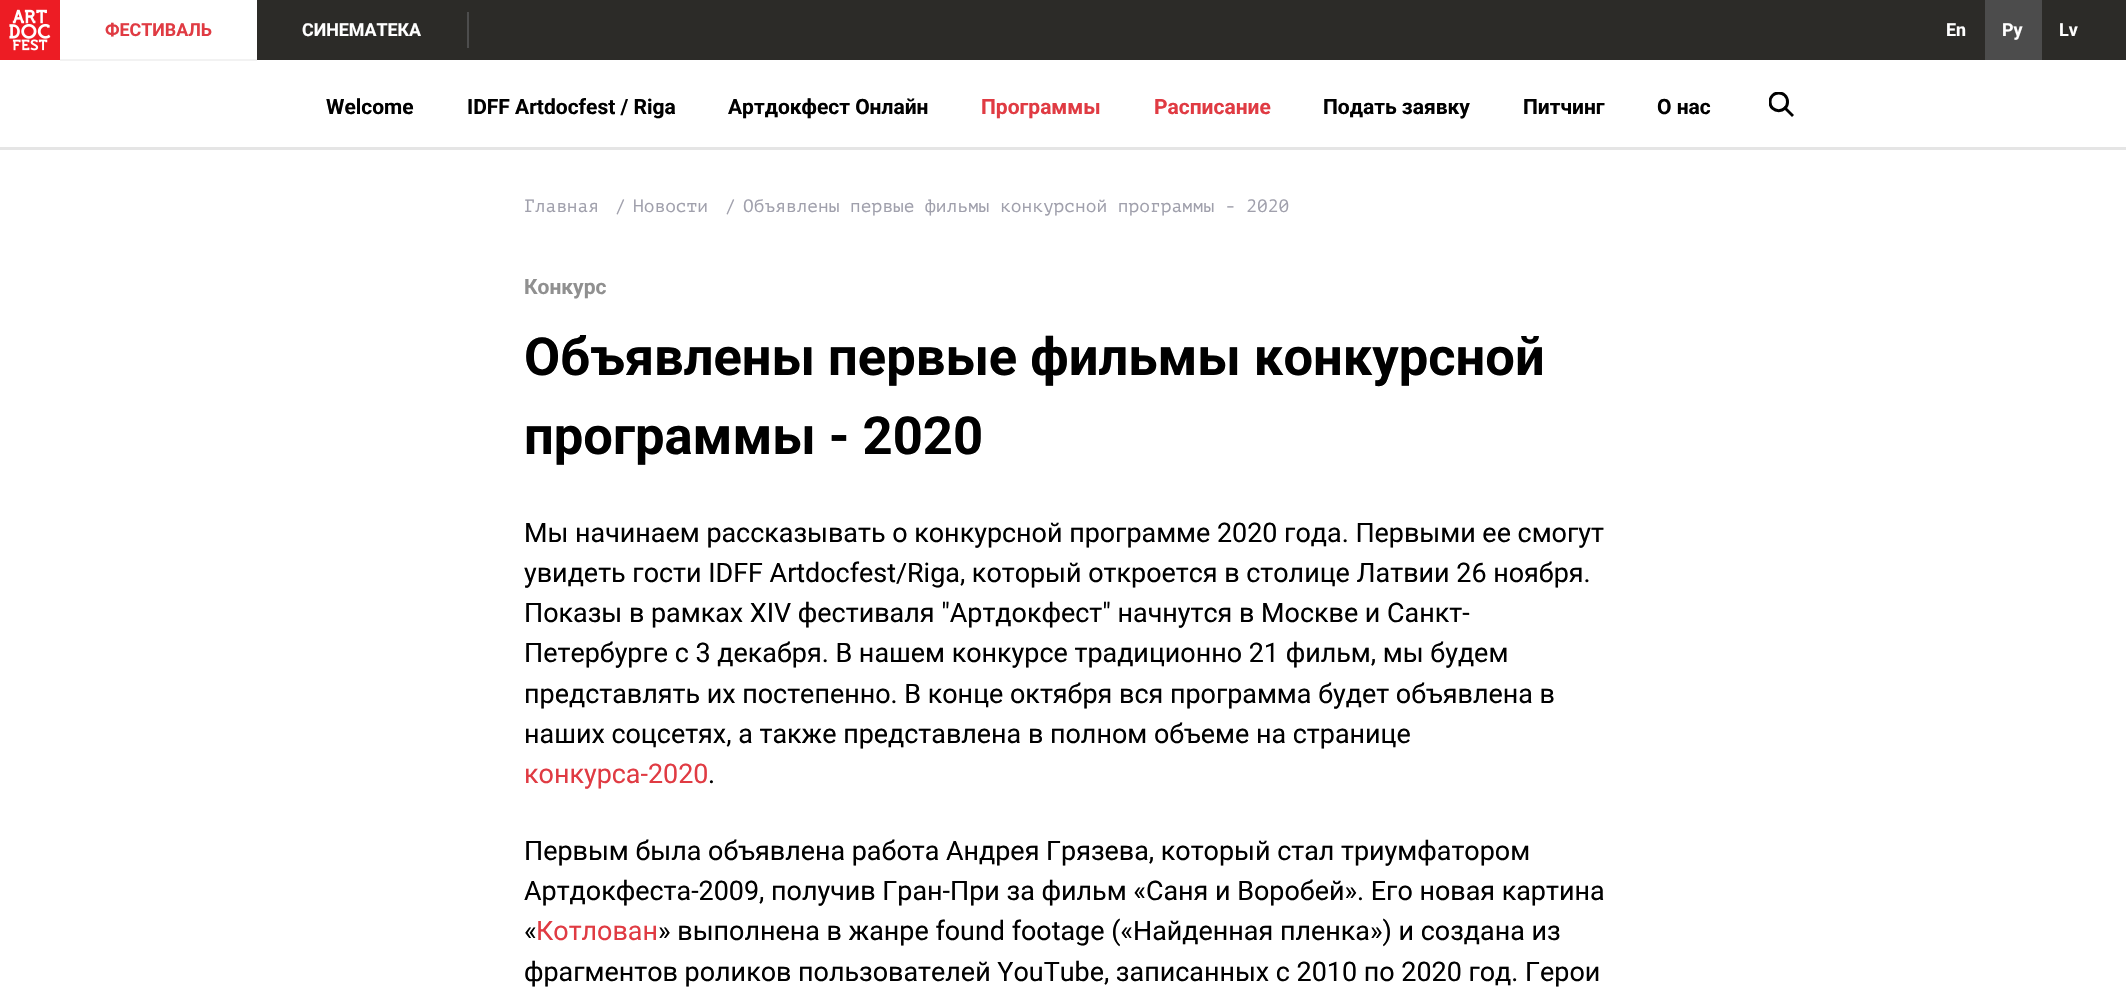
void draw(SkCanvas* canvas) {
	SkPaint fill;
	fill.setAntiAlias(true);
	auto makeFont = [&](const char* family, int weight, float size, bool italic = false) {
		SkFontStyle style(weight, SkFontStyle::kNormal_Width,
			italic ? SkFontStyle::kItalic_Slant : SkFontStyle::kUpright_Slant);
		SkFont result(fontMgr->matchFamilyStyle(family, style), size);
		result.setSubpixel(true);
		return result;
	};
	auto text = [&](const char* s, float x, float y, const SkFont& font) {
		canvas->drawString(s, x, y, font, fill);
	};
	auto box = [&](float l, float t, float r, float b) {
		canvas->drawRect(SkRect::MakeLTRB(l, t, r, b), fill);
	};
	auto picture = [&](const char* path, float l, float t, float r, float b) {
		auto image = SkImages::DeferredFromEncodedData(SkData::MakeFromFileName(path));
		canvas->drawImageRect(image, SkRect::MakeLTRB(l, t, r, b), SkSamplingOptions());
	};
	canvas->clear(0xFFFFFFFF);
	fill.setColor(0xFF2C2B28);
	box(257, 0, 2126, 60);
	fill.setColor(0xFFED1C24);
	box(0, 0, 60, 60);
	picture("image0.png", 9, 9, 51, 51);
	fill.setColor(0xFFF2F2F2);
	box(60, 59, 257, 61);
	fill.setColor(0xFF4D4D4D);
	box(467, 12, 469, 48);
	fill.setColor(0xFF4C4C4C);
	box(1985, 0, 2042, 60);
	fill.setColor(0xFFE5E5E5);
	box(0, 147, 2126, 150);
	canvas->save();
	canvas->clipRect(SkRect::MakeLTRB(1769, 92, 1794, 117));
	fill.setStyle(SkPaint::kStroke_Style);
	fill.setStrokeWidth(3);
	fill.setColor(0xFF000000);
	canvas->drawPath(SkPathBuilder().moveTo(1787.5f, 102).cubicTo(1787.5f, 113.5f, 1770, 113.5f, 1770, 102).cubicTo(1770, 90, 1787.5f, 90, 1787.5f, 102).close().detach(), fill);
	canvas->restore();
	fill.setStyle(SkPaint::kFill_Style);
	canvas->drawPath(SkPathBuilder().moveTo(1783, 108).lineTo(1785, 106).lineTo(1794, 115).lineTo(1792, 117).close().detach(), fill);
	auto font1 = makeFont("Roboto", 700, 17.85f);
	fill.setColor(0xFFE03B43);
	text("ФЕСТИВАЛЬ", 105, 36, font1);
	fill.setColor(0xFFFFFFFF);
	text("СИНЕМАТЕКА", 302, 36, font1);
	text("En", 1946, 36, font1);
	text("Ру", 2002, 36, font1);
	text("Lv", 2059, 36, font1);
	auto font2 = makeFont("Roboto", 700, 21);
	fill.setColor(0xFF000000);
	text("Welcome", 326, 114, font2);
	text("IDFF Artdocfest / Riga", 467, 114, font2);
	text("Артдокфест Онлайн", 728, 114, font2);
	fill.setColor(0xFFE03B43);
	text("Программы", 981, 114, font2);
	text("Расписание", 1154, 114, font2);
	fill.setColor(0xFF000000);
	text("Подать заявку", 1323, 114, font2);
	text("Питчинг", 1523, 114, font2);
	text("О нас", 1657, 114, font2);
	auto font3 = makeFont("PT Mono", 400, 17.85f);
	fill.setColor(0xFFA0A0AC);
	text("Главная", 524, 212, font3);
	text("/", 615, 212, font3);
	text("Новости", 633, 212, font3);
	text("/", 725, 212, font3);
	text("Объявлены первые фильмы конкурсной программы - 2020", 743, 212, font3);
	fill.setColor(0xFF909090);
	text("Конкурс", 524, 294, font2);
	auto font4 = makeFont("Roboto", 700, 52.5f);
	fill.setColor(0xFF000000);
	text("Объявлены первые фильмы конкурсной", 524, 375, font4);
	text("программы - 2020", 524, 454, font4);
	auto font5 = makeFont("Roboto", 400, 26.9f);
	text("Мы начинаем рассказывать о конкурсной программе 2020 года. Первыми ее смогут", 524, 542, font5);
	text("увидеть гости IDFF Artdocfest/Riga, который откроется в столице Латвии 26 ноября.", 524, 582, font5);
	text("Показы в рамках XIV фестиваля \"Артдокфест\" начнутся в Москве и Санкт-", 524, 622, font5);
	text("Петербурге с 3 декабря. В нашем конкурсе традиционно 21 фильм, мы будем", 524, 662, font5);
	text("представлять их постепенно. В конце октября вся программа будет объявлена в", 524, 703, font5);
	text("наших соцсетях, а также представлена в полном объеме на странице", 524, 743, font5);
	fill.setColor(0xFFE03B43);
	text("конкурса-2020", 524, 783, font5);
	fill.setColor(0xFF000000);
	text(".", 708, 783, font5);
	text("Первым была объявлена работа Андрея Грязева, который стал триумфатором", 524, 860, font5);
	text("Артдокфеста-2009, получив Гран-При за фильм «Саня и Воробей». Его новая картина", 524, 900, font5);
	text("«", 524, 940, font5);
	fill.setColor(0xFFE03B43);
	text("Котлован", 536, 940, font5);
	fill.setColor(0xFF000000);
	text("» выполнена в жанре found footage («Найденная пленка») и создана из", 658, 940, font5);
	text("фрагментов роликов пользователей YouTube, записанных с 2010 по 2020 год. Герои", 524, 981, font5);
}
